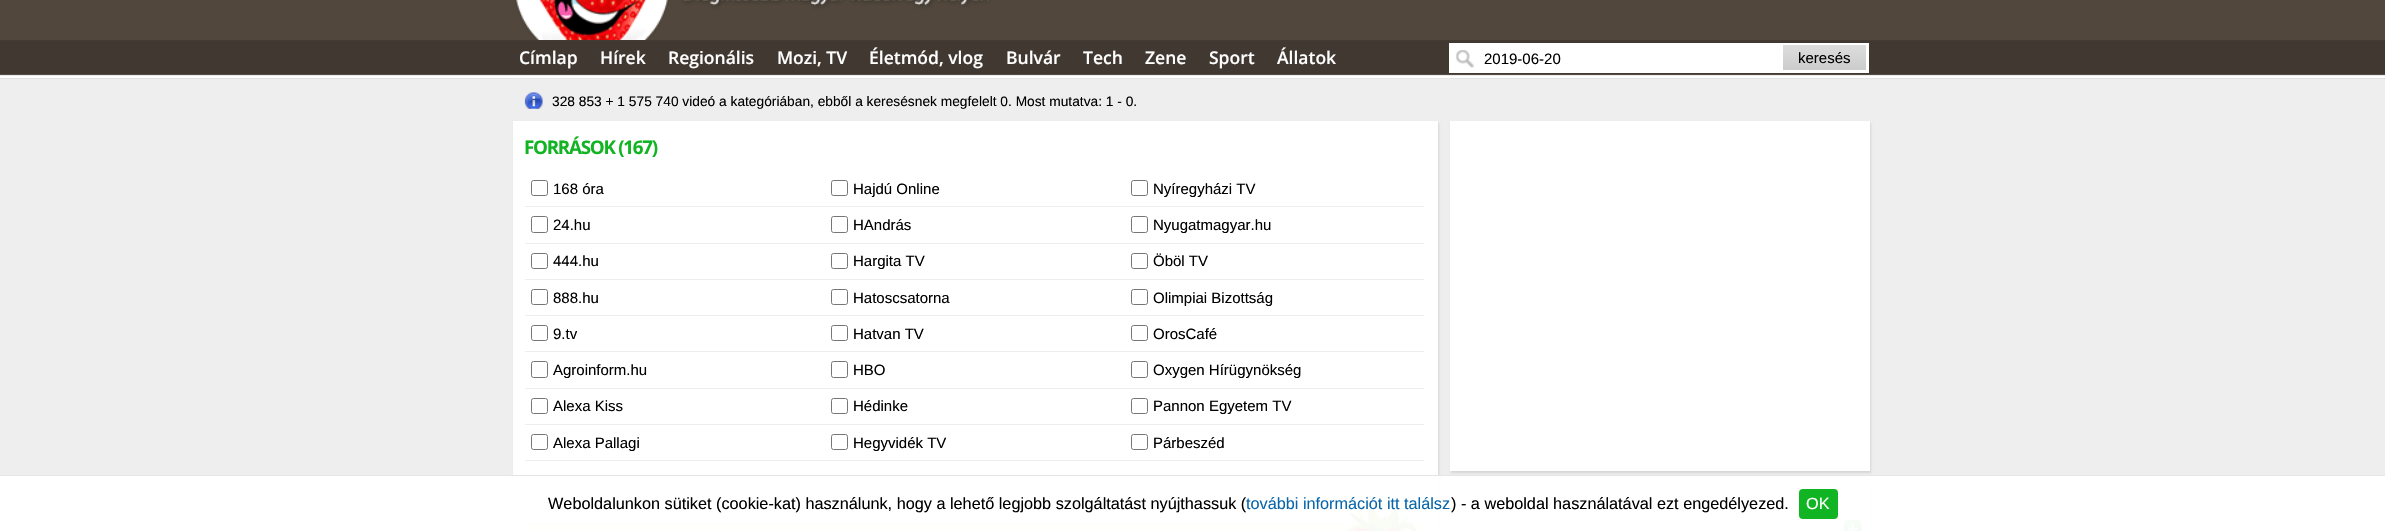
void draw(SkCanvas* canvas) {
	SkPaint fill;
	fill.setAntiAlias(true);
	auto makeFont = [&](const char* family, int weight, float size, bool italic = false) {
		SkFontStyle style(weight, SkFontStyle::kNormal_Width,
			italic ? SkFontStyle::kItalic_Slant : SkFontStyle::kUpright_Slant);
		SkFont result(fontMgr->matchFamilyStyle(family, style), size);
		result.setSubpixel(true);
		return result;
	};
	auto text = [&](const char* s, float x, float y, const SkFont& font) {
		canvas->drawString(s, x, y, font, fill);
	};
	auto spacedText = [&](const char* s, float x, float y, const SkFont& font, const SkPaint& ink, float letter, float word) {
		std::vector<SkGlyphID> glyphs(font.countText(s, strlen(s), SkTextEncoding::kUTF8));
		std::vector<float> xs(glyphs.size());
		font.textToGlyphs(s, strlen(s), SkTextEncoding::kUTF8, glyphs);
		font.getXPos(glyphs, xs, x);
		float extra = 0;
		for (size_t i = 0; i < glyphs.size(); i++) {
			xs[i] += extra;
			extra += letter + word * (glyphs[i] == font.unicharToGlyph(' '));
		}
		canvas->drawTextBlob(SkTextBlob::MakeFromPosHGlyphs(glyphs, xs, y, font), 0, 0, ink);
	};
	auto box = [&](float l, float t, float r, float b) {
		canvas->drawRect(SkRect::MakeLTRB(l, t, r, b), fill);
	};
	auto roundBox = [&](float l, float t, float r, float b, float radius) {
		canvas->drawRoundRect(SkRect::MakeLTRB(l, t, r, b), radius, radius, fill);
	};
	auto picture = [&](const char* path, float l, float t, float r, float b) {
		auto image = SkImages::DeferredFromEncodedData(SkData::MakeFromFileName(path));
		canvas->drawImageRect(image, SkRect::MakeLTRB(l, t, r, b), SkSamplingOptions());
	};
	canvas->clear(0xFFEEEEEE);
	picture("image0.png", 0, 40, 2385, 79);
	fill.setColor(0xFF51473D);
	box(0, 0, 2385, 40);
	picture("image1.png", 515, 0, 991, 40);
	picture("image2.png", 513, 40, 1875, 79);
	fill.setColor(0x1A000000);
	box(0, 78, 2385, 79);
	fill.setColor(0xFFFFFFFF);
	box(1449, 43, 1869, 73);
	picture("image3.png", 1456, 50, 1474, 68);
	{
		const SkColor colors[] = {0xFFDDDDDD, 0xFFCCCCCC};
		const float stops[] = {0, 1};
		const SkPoint ends[] = {{1824, 45}, {1824, 70}};
		fill.setShader(SkGradientShader::MakeLinear(ends, colors, stops, 2, SkTileMode::kClamp));
		fill.setAlpha(255);
	}
	box(1783, 45, 1866, 70);
	picture("image4.png", 524, 92, 543, 109);
	fill.setShader(nullptr);
	fill.setColor(0x1A000000);
	fill.setMaskFilter(SkMaskFilter::MakeBlur(kNormal_SkBlurStyle, 1));
	canvas->drawRect(SkRect::MakeLTRB(514, 123, 1439, 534), fill);
	fill.setMaskFilter(nullptr);
	fill.setColor(0xFFFFFFFF);
	box(513, 121, 1438, 531);
	fill.setColor(0xFFEEEEEE);
	box(525, 460, 1424, 461);
	fill.setStyle(SkPaint::kStroke_Style);
	fill.setStrokeWidth(1);
	fill.setColor(0xFF767676);
	canvas->drawRoundRect(SkRect::MakeLTRB(531.5f, 180.5f, 547.5f, 195.5f), 2, 2, fill);
	fill.setStyle(SkPaint::kFill_Style);
	fill.setColor(0xFFEEEEEE);
	box(525, 206, 1424, 207);
	fill.setStyle(SkPaint::kStroke_Style);
	fill.setColor(0xFF767676);
	canvas->drawRoundRect(SkRect::MakeLTRB(531.5f, 216.5f, 547.5f, 232.5f), 2, 2, fill);
	fill.setStyle(SkPaint::kFill_Style);
	fill.setColor(0xFFEEEEEE);
	box(525, 243, 1424, 244);
	fill.setStyle(SkPaint::kStroke_Style);
	fill.setColor(0xFF767676);
	canvas->drawRoundRect(SkRect::MakeLTRB(531.5f, 253.5f, 547.5f, 268.5f), 2, 2, fill);
	fill.setStyle(SkPaint::kFill_Style);
	fill.setColor(0xFFEEEEEE);
	box(525, 279, 1424, 280);
	fill.setStyle(SkPaint::kStroke_Style);
	fill.setColor(0xFF767676);
	canvas->drawRoundRect(SkRect::MakeLTRB(531.5f, 289.5f, 547.5f, 304.5f), 2, 2, fill);
	fill.setStyle(SkPaint::kFill_Style);
	fill.setColor(0xFFEEEEEE);
	box(525, 315, 1424, 316);
	fill.setStyle(SkPaint::kStroke_Style);
	fill.setColor(0xFF767676);
	canvas->drawRoundRect(SkRect::MakeLTRB(531.5f, 325.5f, 547.5f, 340.5f), 2, 2, fill);
	fill.setStyle(SkPaint::kFill_Style);
	fill.setColor(0xFFEEEEEE);
	box(525, 351, 1424, 352);
	fill.setStyle(SkPaint::kStroke_Style);
	fill.setColor(0xFF767676);
	canvas->drawRoundRect(SkRect::MakeLTRB(531.5f, 361.5f, 547.5f, 377.5f), 2, 2, fill);
	fill.setStyle(SkPaint::kFill_Style);
	fill.setColor(0xFFEEEEEE);
	box(525, 388, 1424, 389);
	fill.setStyle(SkPaint::kStroke_Style);
	fill.setColor(0xFF767676);
	canvas->drawRoundRect(SkRect::MakeLTRB(531.5f, 398.5f, 547.5f, 413.5f), 2, 2, fill);
	fill.setStyle(SkPaint::kFill_Style);
	fill.setColor(0xFFEEEEEE);
	box(525, 424, 1424, 425);
	fill.setStyle(SkPaint::kStroke_Style);
	fill.setColor(0xFF767676);
	canvas->drawRoundRect(SkRect::MakeLTRB(531.5f, 434.5f, 547.5f, 449.5f), 2, 2, fill);
	canvas->drawRoundRect(SkRect::MakeLTRB(831.5f, 180.5f, 847.5f, 195.5f), 2, 2, fill);
	canvas->drawRoundRect(SkRect::MakeLTRB(831.5f, 216.5f, 847.5f, 232.5f), 2, 2, fill);
	canvas->drawRoundRect(SkRect::MakeLTRB(831.5f, 253.5f, 847.5f, 268.5f), 2, 2, fill);
	canvas->drawRoundRect(SkRect::MakeLTRB(831.5f, 289.5f, 847.5f, 304.5f), 2, 2, fill);
	canvas->drawRoundRect(SkRect::MakeLTRB(831.5f, 325.5f, 847.5f, 340.5f), 2, 2, fill);
	canvas->drawRoundRect(SkRect::MakeLTRB(831.5f, 361.5f, 847.5f, 377.5f), 2, 2, fill);
	canvas->drawRoundRect(SkRect::MakeLTRB(831.5f, 398.5f, 847.5f, 413.5f), 2, 2, fill);
	canvas->drawRoundRect(SkRect::MakeLTRB(831.5f, 434.5f, 847.5f, 449.5f), 2, 2, fill);
	canvas->drawRoundRect(SkRect::MakeLTRB(1131.5f, 180.5f, 1147.5f, 195.5f), 2, 2, fill);
	canvas->drawRoundRect(SkRect::MakeLTRB(1131.5f, 216.5f, 1147.5f, 232.5f), 2, 2, fill);
	canvas->drawRoundRect(SkRect::MakeLTRB(1131.5f, 253.5f, 1147.5f, 268.5f), 2, 2, fill);
	canvas->drawRoundRect(SkRect::MakeLTRB(1131.5f, 289.5f, 1147.5f, 304.5f), 2, 2, fill);
	canvas->drawRoundRect(SkRect::MakeLTRB(1131.5f, 325.5f, 1147.5f, 340.5f), 2, 2, fill);
	canvas->drawRoundRect(SkRect::MakeLTRB(1131.5f, 361.5f, 1147.5f, 377.5f), 2, 2, fill);
	canvas->drawRoundRect(SkRect::MakeLTRB(1131.5f, 398.5f, 1147.5f, 413.5f), 2, 2, fill);
	canvas->drawRoundRect(SkRect::MakeLTRB(1131.5f, 434.5f, 1147.5f, 449.5f), 2, 2, fill);
	fill.setStyle(SkPaint::kFill_Style);
	fill.setColor(0xFFFFF6BF);
	roundBox(525, 524, 1424, 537, 6);
	fill.setColor(0xFFFFFFFF);
	canvas->drawPath(SkPathBuilder().moveTo(531, 526).lineTo(1418, 526).cubicTo(1420, 526, 1422, 528, 1422, 531).lineTo(1422, 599).lineTo(1423, 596).lineTo(1423, 529).cubicTo(1423, 527, 1421, 525, 1419, 525).lineTo(531, 525).cubicTo(528, 525, 526, 528, 526, 531).cubicTo(526, 528, 528, 526, 531, 526).close().detach(), fill);
	fill.setStyle(SkPaint::kStroke_Style);
	fill.setColor(0xFFFFD324);
	canvas->drawRoundRect(SkRect::MakeLTRB(525.5f, 524.5f, 1423.5f, 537.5f), 5.5f, 5.5f, fill);
	picture("image5.png", 1347, 506, 1417, 531);
	fill.setStyle(SkPaint::kFill_Style);
	fill.setColor(0x1A000000);
	fill.setMaskFilter(SkMaskFilter::MakeBlur(kNormal_SkBlurStyle, 1));
	canvas->drawRect(SkRect::MakeLTRB(1451, 123, 1871, 473), fill);
	fill.setMaskFilter(nullptr);
	fill.setColor(0xFFFFFFFF);
	box(1450, 121, 1870, 471);
	fill.setColor(0x1A000000);
	fill.setMaskFilter(SkMaskFilter::MakeBlur(kNormal_SkBlurStyle, 1));
	canvas->drawRect(SkRect::MakeLTRB(1451, 485, 1871, 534), fill);
	fill.setMaskFilter(nullptr);
	fill.setColor(0xFFFFFFFF);
	box(1450, 484, 1870, 531);
	picture("image6.png", 1843, 519, 1862, 531);
	fill.setColor(0xF2FFFFFF);
	box(0, 475, 2385, 531);
	fill.setColor(0x1A000000);
	box(0, 475, 2385, 476);
	fill.setColor(0xFF11B422);
	roundBox(1799, 489, 1838, 519, 4);
	auto font1 = makeFont("Open Sans", 600, 17.5f);
	fill.setColor(0xFFFFFFFF);
	text("Címlap", 519, 64, font1);
	text("Hírek", 600, 64, font1);
	text("Regionális", 668, 64, font1);
	text("Mozi, TV", 777, 64, font1);
	text("Életmód, vlog", 869, 64, font1);
	text("Bulvár", 1006, 64, font1);
	text("Tech", 1083, 64, font1);
	text("Zene", 1145, 64, font1);
	text("Sport", 1209, 64, font1);
	text("Állatok", 1277, 64, font1);
	auto font2 = makeFont("Liberation Sans", 400, 15);
	fill.setColor(0xFF000000);
	text("2019-06-20", 1484, 64, font2);
	text("keresés", 1798, 63, font2);
	auto font3 = makeFont("Liberation Sans", 400, 13.75f);
	text("328 853 + 1 575 740 videó a kategóriában, ebből a keresésnek megfelelt 0. Most mutatva: 1 - 0.", 552, 106, font3);
	auto font4 = makeFont("Open Sans", 700, 18.75f);
	fill.setColor(0xFF11B422);
	spacedText("FORRÁSOK (167)", 524, 154, font4, fill, -1.25f, 0);
	fill.setColor(0xFF000000);
	text("168 óra", 553, 194, font2);
	text("24.hu", 553, 230, font2);
	text("444.hu", 553, 266, font2);
	text("888.hu", 553, 303, font2);
	text("9.tv", 553, 339, font2);
	text("Agroinform.hu", 553, 375, font2);
	text("Alexa Kiss", 553, 411, font2);
	text("Alexa Pallagi", 553, 448, font2);
	text("Hajdú Online", 853, 194, font2);
	text("HAndrás", 853, 230, font2);
	text("Hargita TV", 853, 266, font2);
	text("Hatoscsatorna", 853, 303, font2);
	text("Hatvan TV", 853, 339, font2);
	text("HBO", 853, 375, font2);
	text("Hédinke", 853, 411, font2);
	text("Hegyvidék TV", 853, 448, font2);
	text("Nyíregyházi TV", 1153, 194, font2);
	text("Nyugatmagyar.hu", 1153, 230, font2);
	text("Öböl TV", 1153, 266, font2);
	text("Olimpiai Bizottság", 1153, 303, font2);
	text("OrosCafé", 1153, 339, font2);
	text("Oxygen Hírügynökség", 1153, 375, font2);
	text("Pannon Egyetem TV", 1153, 411, font2);
	text("Párbeszéd", 1153, 448, font2);
	auto font5 = makeFont("Liberation Sans", 400, 16.25f);
	text("Weboldalunkon sütiket (cookie-kat) használunk, hogy a lehető legjobb szolgáltatást nyújthassuk (", 548, 509, font5);
	fill.setColor(0xFF0966AA);
	text("további információt itt találsz", 1246, 509, font5);
	fill.setColor(0xFF000000);
	text(") - a weboldal használatával ezt engedélyezed.", 1451, 509, font5);
	fill.setColor(0xFFFFFFFF);
	text("OK", 1806, 509, font5);
}
